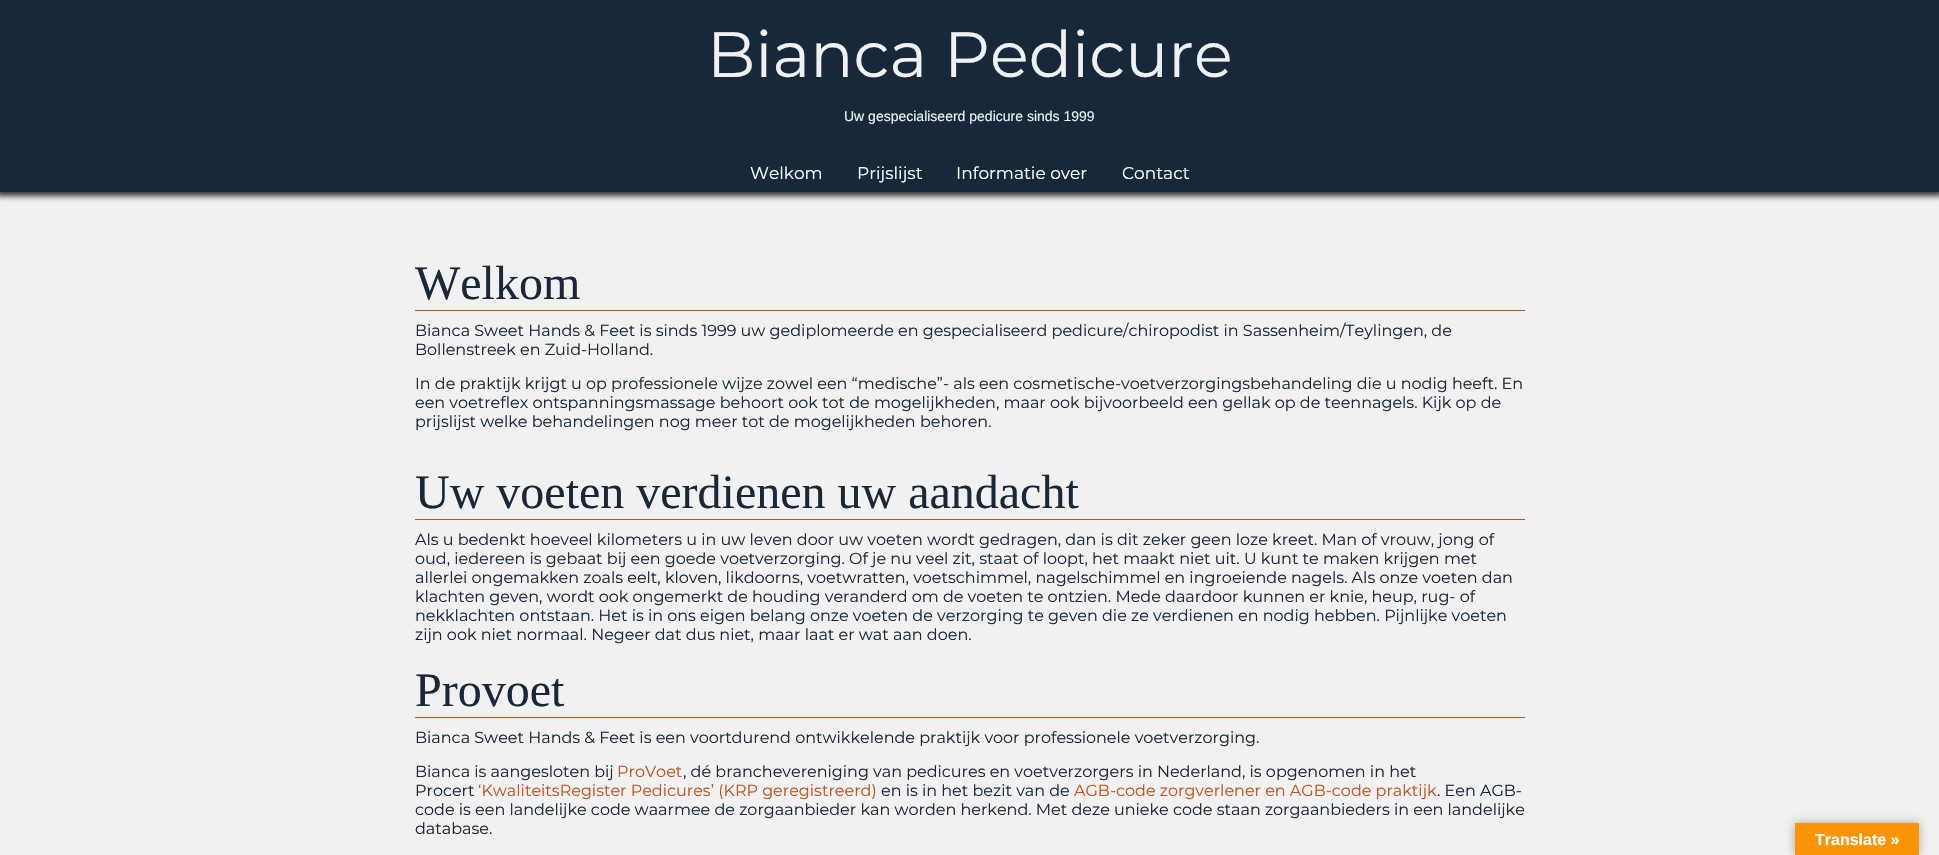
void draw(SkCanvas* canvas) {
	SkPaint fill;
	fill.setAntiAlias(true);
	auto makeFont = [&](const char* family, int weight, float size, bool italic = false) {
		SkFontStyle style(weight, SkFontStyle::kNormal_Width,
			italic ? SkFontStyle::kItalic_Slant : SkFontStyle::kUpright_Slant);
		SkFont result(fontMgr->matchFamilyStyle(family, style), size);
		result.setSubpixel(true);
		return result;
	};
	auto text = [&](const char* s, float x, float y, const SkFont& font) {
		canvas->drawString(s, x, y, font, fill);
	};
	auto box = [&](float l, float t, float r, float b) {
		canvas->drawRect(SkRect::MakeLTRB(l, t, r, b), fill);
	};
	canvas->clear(0xFFF1F1F1);
	fill.setColor(0xFF333333);
	fill.setMaskFilter(SkMaskFilter::MakeBlur(kNormal_SkBlurStyle, 3));
	canvas->drawRect(SkRect::MakeLTRB(-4, -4, 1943, 196), fill);
	fill.setMaskFilter(nullptr);
	fill.setColor(0xFF17283A);
	box(0, 0, 1939, 192);
	fill.setColor(0xFFBD541E);
	box(415, 310, 1525, 311);
	box(415, 519, 1525, 520);
	box(415, 717, 1525, 718);
	fill.setColor(0x4D000000);
	fill.setMaskFilter(SkMaskFilter::MakeBlur(kNormal_SkBlurStyle, 4.5f));
	canvas->drawRect(SkRect::MakeLTRB(1795, 823, 1919, 855), fill);
	fill.setMaskFilter(nullptr);
	fill.setColor(0xFFF89406);
	box(1795, 823, 1919, 855);
	auto font1 = makeFont("Montserrat", 400, 64);
	fill.setColor(0xFFF1F1F1);
	text("Bianca Pedicure", 707, 77, font1);
	auto font2 = makeFont("Liberation Sans", 400, 14);
	text("Uw gespecialiseerd pedicure sinds 1999", 844, 121, font2);
	auto font3 = makeFont("Montserrat", 400, 17);
	fill.setColor(0xFFFFFFFF);
	text("Welkom", 750, 179, font3);
	text("Prijslijst", 857, 179, font3);
	text("Informatie over", 956, 179, font3);
	text("Contact", 1122, 179, font3);
	auto font4 = makeFont("Liberation Serif", 400, 48);
	fill.setColor(0xFF17283A);
	text("Welkom", 415, 299, font4);
	auto font5 = makeFont("Montserrat", 400, 16);
	text("Bianca Sweet Hands & Feet is sinds 1999 uw gediplomeerde en gespecialiseerd pedicure/chiropodist in Sassenheim/Teylingen, de", 415, 336, font5);
	text("Bollenstreek en Zuid-Holland.", 415, 355, font5);
	text("In de praktijk krijgt u op professionele wijze zowel een “medische”- als een cosmetische-voetverzorgingsbehandeling die u nodig heeft. En", 415, 389, font5);
	text("een voetreflex ontspanningsmassage behoort ook tot de mogelijkheden, maar ook bijvoorbeeld een gellak op de teennagels. Kijk op de", 415, 408, font5);
	text("prijslijst welke behandelingen nog meer tot de mogelijkheden behoren.", 415, 427, font5);
	text("Uw voeten verdienen uw aandacht", 415, 508, font4);
	text("Als u bedenkt hoeveel kilometers u in uw leven door uw voeten wordt gedragen, dan is dit zeker geen loze kreet. Man of vrouw, jong of", 415, 545, font5);
	text("oud, iedereen is gebaat bij een goede voetverzorging. Of je nu veel zit, staat of loopt, het maakt niet uit. U kunt te maken krijgen met", 415, 564, font5);
	text("allerlei ongemakken zoals eelt, kloven, likdoorns, voetwratten, voetschimmel, nagelschimmel en ingroeiende nagels. Als onze voeten dan", 415, 583, font5);
	text("klachten geven, wordt ook ongemerkt de houding veranderd om de voeten te ontzien. Mede daardoor kunnen er knie, heup, rug- of", 415, 602, font5);
	text("nekklachten ontstaan. Het is in ons eigen belang onze voeten de verzorging te geven die ze verdienen en nodig hebben. Pijnlijke voeten", 415, 621, font5);
	text("zijn ook niet normaal. Negeer dat dus niet, maar laat er wat aan doen.", 415, 640, font5);
	text("Provoet", 415, 706, font4);
	text("Bianca Sweet Hands & Feet is een voortdurend ontwikkelende praktijk voor professionele voetverzorging.", 415, 743, font5);
	text("Bianca is aangesloten bij", 415, 777, font5);
	fill.setColor(0xFFBD541E);
	text("ProVoet", 617, 777, font5);
	fill.setColor(0xFF17283A);
	text(", dé branchevereniging van pedicures en voetverzorgers in Nederland, is opgenomen in het", 683, 777, font5);
	text("Procert", 415, 796, font5);
	fill.setColor(0xFFBD541E);
	text("‘KwaliteitsRegister Pedicures’ (KRP geregistreerd)", 478, 796, font5);
	fill.setColor(0xFF17283A);
	text("en is in het bezit van de", 881, 796, font5);
	fill.setColor(0xFFBD541E);
	text("AGB-code zorgverlener en AGB-code praktijk", 1074, 796, font5);
	fill.setColor(0xFF17283A);
	text(". Een AGB-", 1437, 796, font5);
	text("code is een landelijke code waarmee de zorgaanbieder kan worden herkend. Met deze unieke code staan zorgaanbieders in een landelijke", 415, 815, font5);
	text("database.", 415, 834, font5);
	auto font6 = makeFont("Liberation Sans", 700, 16);
	fill.setColor(0xFFFFFFFF);
	text("Translate »", 1815, 845, font6);
}
